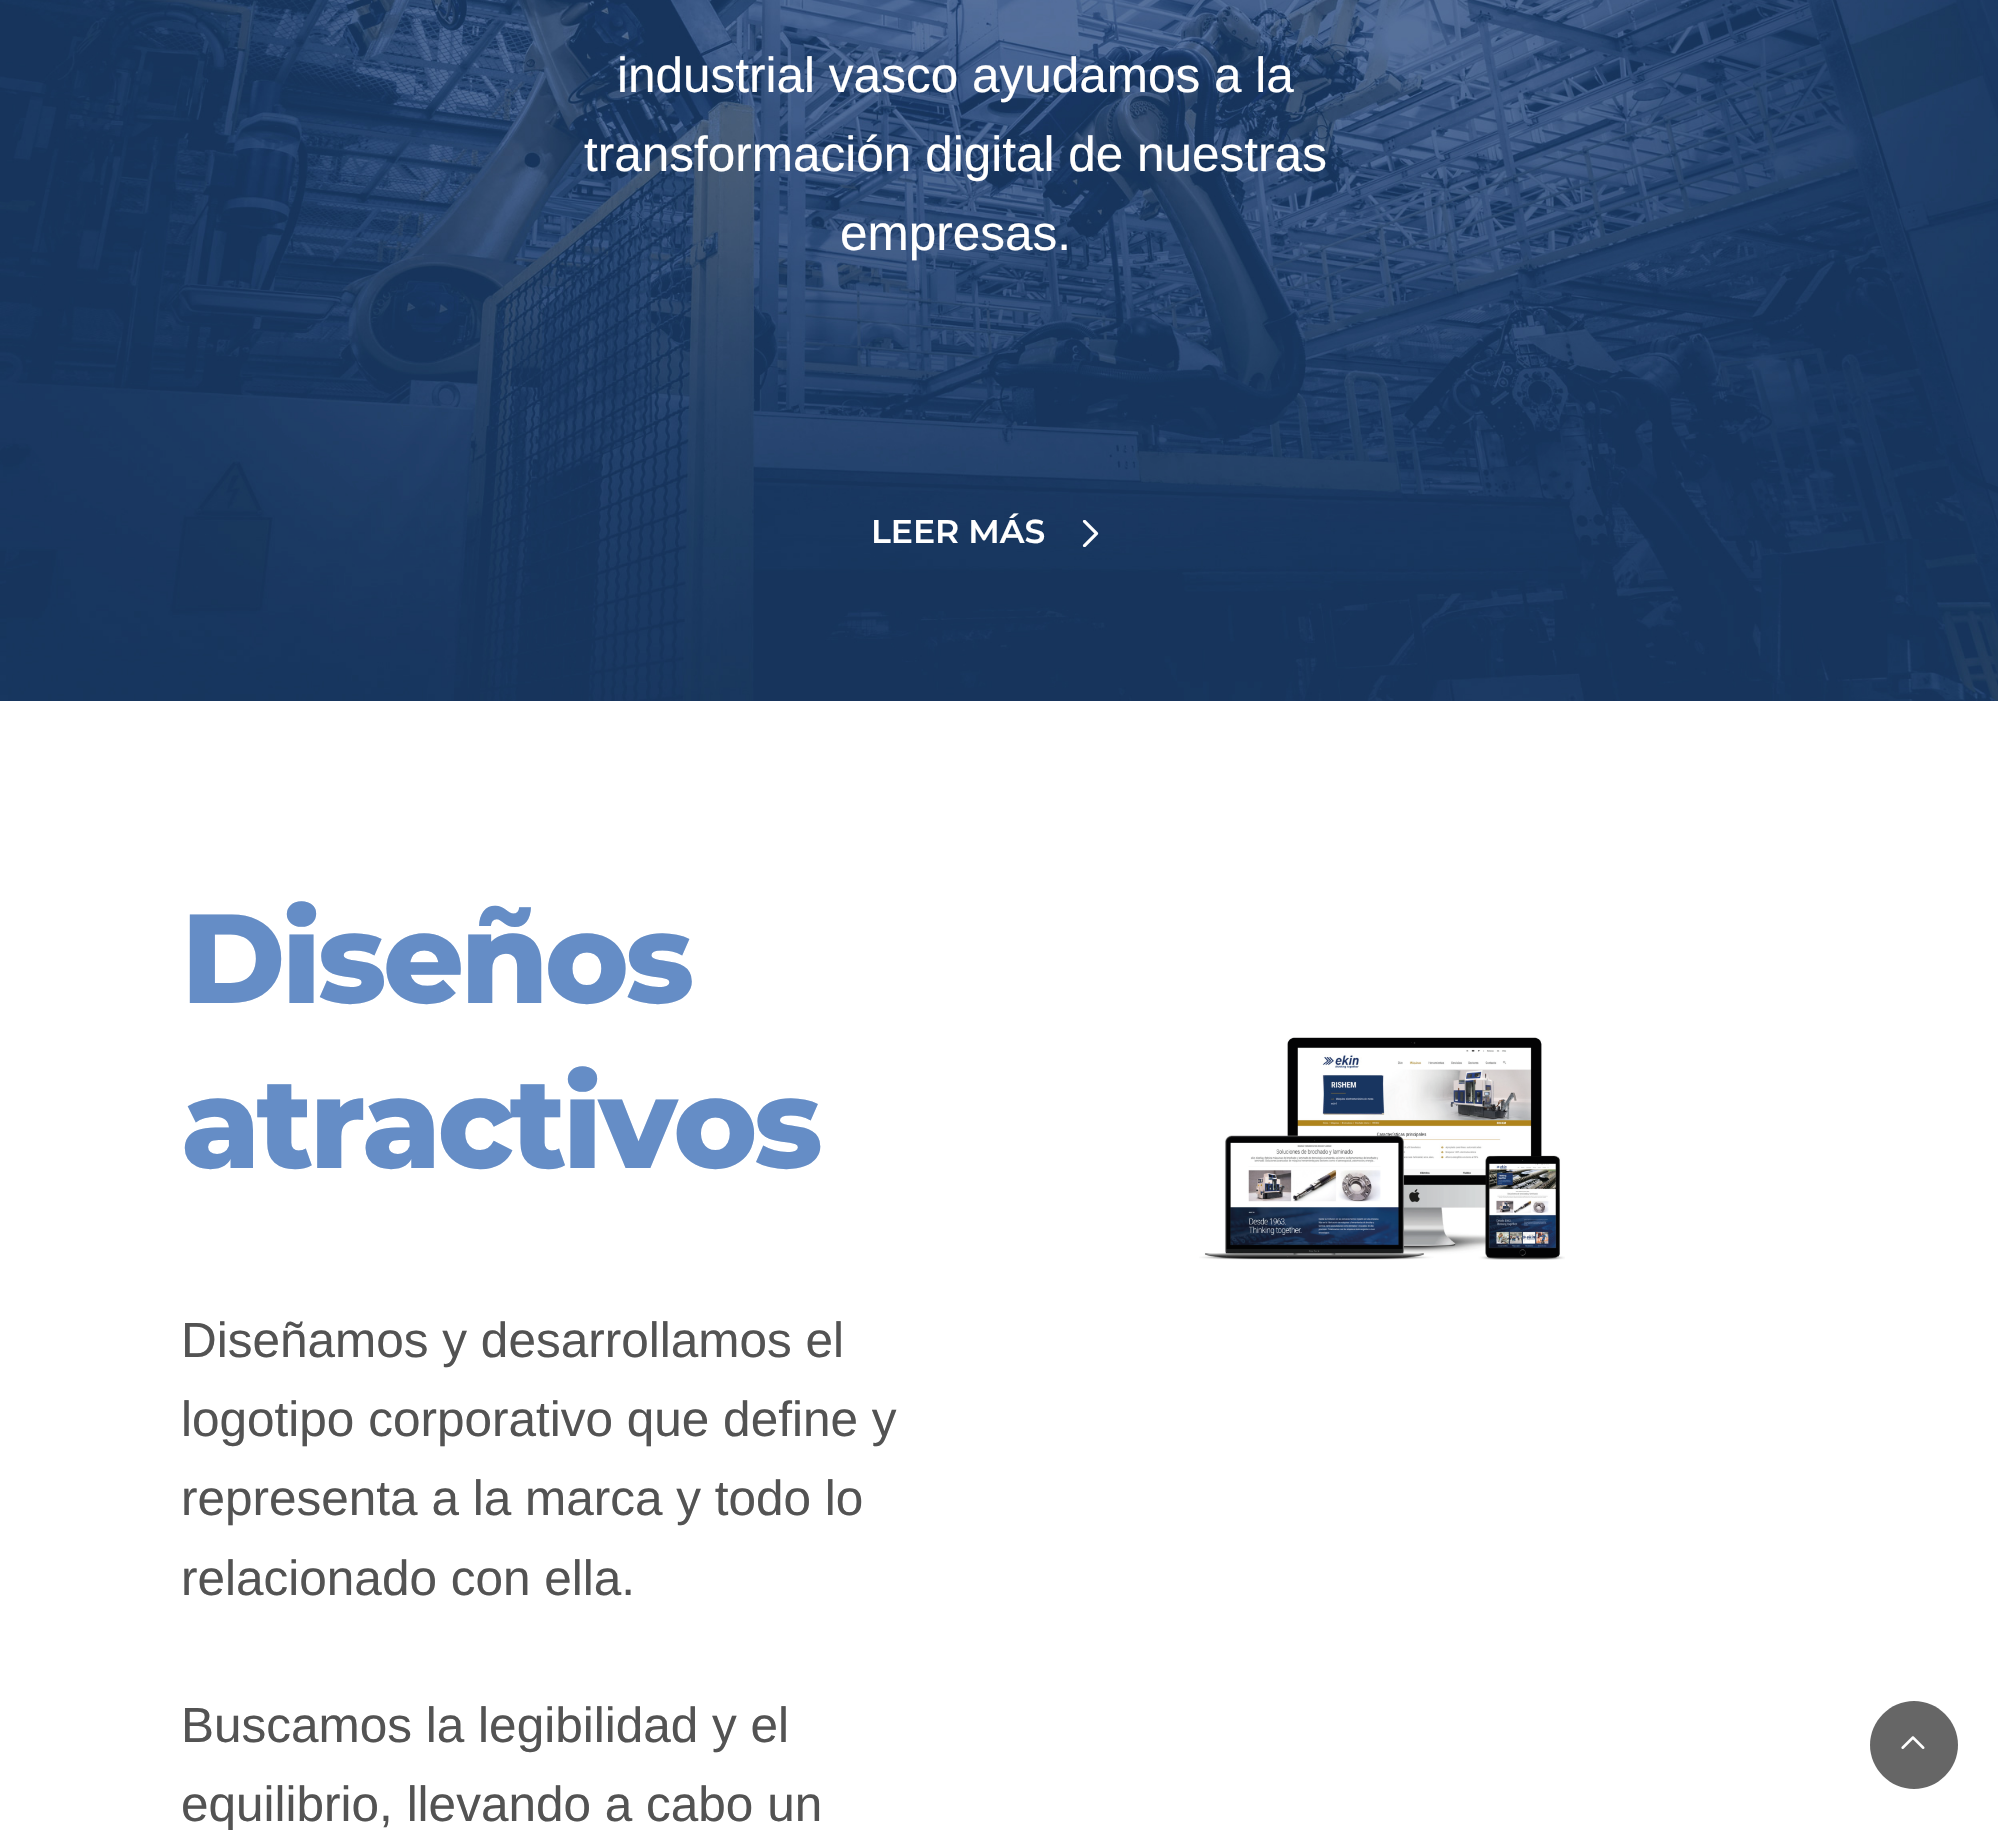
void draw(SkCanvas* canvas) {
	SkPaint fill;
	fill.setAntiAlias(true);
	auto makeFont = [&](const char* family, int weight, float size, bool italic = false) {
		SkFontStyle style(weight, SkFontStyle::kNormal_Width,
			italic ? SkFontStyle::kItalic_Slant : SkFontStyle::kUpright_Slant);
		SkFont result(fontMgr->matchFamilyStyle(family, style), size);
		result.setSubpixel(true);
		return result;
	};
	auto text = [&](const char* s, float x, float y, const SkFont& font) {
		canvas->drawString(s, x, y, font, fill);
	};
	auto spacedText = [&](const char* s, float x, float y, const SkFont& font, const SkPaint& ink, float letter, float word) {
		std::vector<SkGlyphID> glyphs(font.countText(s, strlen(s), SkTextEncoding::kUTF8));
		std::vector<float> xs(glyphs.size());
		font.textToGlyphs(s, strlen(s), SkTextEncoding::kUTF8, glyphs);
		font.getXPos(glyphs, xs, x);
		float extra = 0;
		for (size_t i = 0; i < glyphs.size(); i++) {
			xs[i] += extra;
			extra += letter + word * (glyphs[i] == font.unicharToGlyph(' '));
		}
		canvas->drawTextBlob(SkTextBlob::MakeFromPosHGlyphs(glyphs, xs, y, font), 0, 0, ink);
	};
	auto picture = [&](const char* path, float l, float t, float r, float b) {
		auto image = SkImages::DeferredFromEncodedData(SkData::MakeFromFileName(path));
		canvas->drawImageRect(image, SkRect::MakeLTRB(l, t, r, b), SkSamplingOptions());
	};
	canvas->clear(0xFFFFFFFF);
	picture("image0.png", 0, 0, 1998, 701);
	picture("image1.png", 1082, 520, 1099, 547);
	picture("image2.png", 1199, 1037, 1565, 1260);
	fill.setColor(0xFF666666);
	canvas->drawPath(SkPathBuilder().moveTo(1958, 1745).cubicTo(1958, 1769, 1938, 1789, 1914, 1789).cubicTo(1890, 1789, 1870, 1769, 1870, 1745).cubicTo(1870, 1721, 1890, 1701, 1914, 1701).cubicTo(1938, 1701, 1958, 1721, 1958, 1745).close().detach(), fill);
	picture("image3.png", 1901, 1736, 1925, 1749);
	auto font1 = makeFont("Liberation Sans", 400, 49.5f);
	fill.setColor(0xFFFFFFFF);
	text("industrial vasco ayudamos a la", 617, 92, font1);
	text("transformación digital de nuestras", 584, 171, font1);
	text("empresas.", 840, 250, font1);
	auto font2 = makeFont("Montserrat", 600, 33);
	text("LEER MÁS", 871, 543, font2);
	auto font3 = makeFont("Montserrat", 800, 126.5f);
	fill.setColor(0xFF658DC6);
	spacedText("Diseños", 181, 1003, font3, fill, -3.75f, 0);
	spacedText("atractivos", 181, 1168, font3, fill, -3.75f, 0);
	fill.setColor(0xFF535353);
	text("Diseñamos y desarrollamos el", 181, 1357, font1);
	text("logotipo corporativo que define y", 181, 1436, font1);
	text("representa a la marca y todo lo", 181, 1515, font1);
	text("relacionado con ella.", 181, 1595, font1);
	text("Buscamos la legibilidad y el", 181, 1742, font1);
	text("equilibrio, llevando a cabo un", 181, 1821, font1);
}
